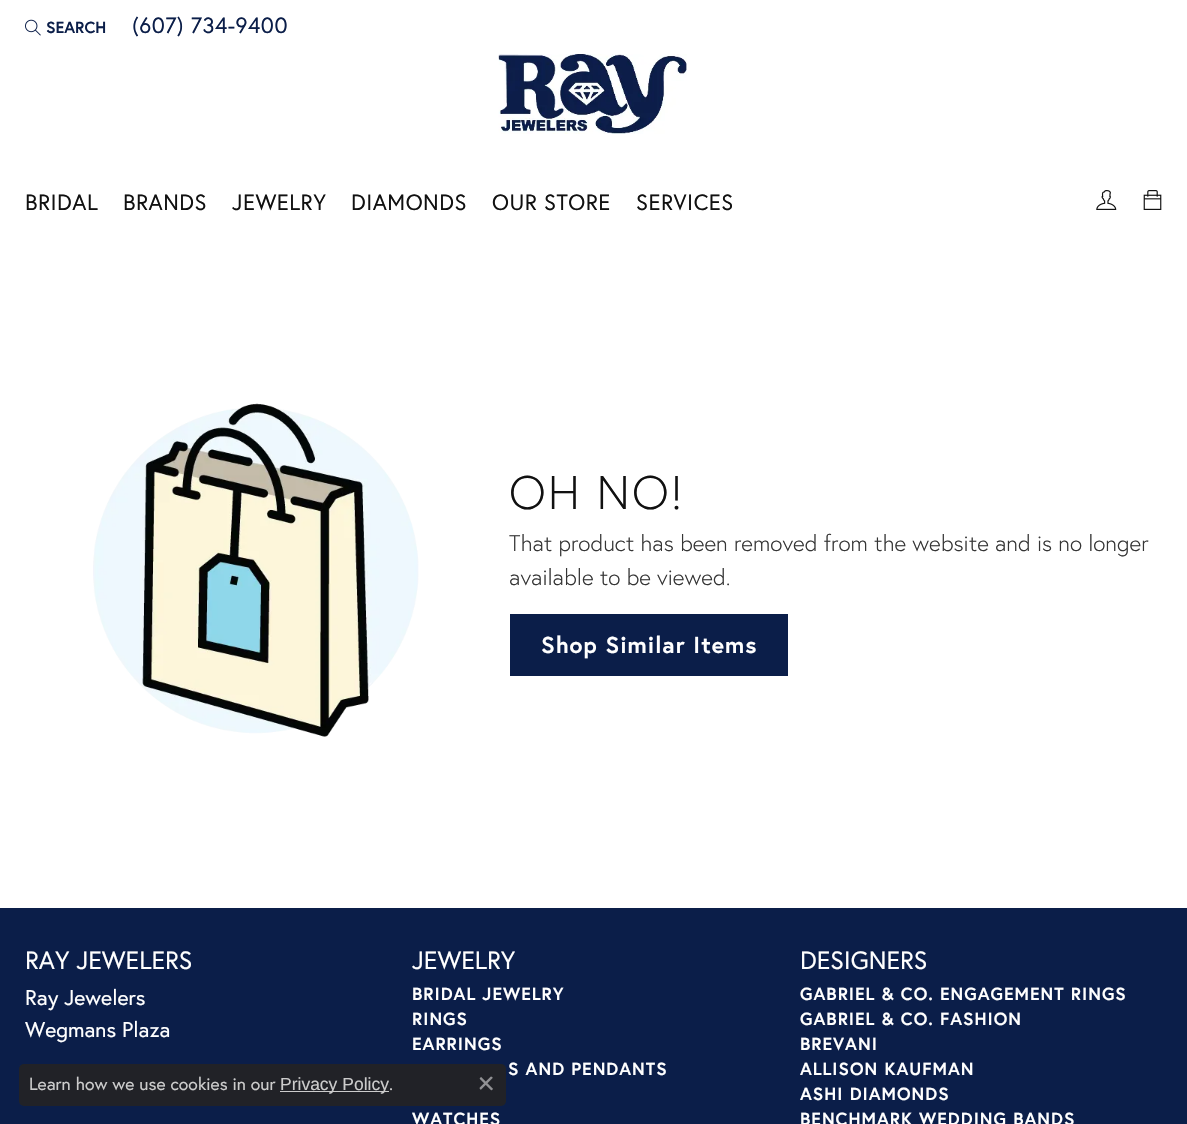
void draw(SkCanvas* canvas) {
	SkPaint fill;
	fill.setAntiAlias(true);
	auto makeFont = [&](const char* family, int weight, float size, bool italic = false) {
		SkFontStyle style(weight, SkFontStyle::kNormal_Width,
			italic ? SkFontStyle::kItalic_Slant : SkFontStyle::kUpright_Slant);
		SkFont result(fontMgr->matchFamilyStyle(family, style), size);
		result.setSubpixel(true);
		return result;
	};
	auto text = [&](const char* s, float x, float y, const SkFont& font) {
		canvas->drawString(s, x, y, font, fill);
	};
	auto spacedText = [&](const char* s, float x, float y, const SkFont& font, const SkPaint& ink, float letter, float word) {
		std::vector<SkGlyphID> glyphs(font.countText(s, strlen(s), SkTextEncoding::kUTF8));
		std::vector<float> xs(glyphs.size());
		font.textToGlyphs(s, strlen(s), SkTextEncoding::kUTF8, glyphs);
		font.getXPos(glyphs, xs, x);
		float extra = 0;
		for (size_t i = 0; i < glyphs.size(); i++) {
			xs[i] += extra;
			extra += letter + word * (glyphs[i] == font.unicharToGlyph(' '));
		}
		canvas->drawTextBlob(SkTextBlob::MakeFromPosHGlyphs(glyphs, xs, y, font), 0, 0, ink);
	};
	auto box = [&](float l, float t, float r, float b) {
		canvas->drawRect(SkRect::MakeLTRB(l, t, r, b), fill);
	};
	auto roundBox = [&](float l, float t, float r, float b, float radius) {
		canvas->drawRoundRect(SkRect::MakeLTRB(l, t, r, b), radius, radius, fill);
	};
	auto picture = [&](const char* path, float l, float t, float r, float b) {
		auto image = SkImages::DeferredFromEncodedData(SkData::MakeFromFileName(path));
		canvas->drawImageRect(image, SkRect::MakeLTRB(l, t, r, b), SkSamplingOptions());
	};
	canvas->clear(0xFFFFFFFF);
	picture("image0.png", 25, 19, 41, 36);
	picture("image1.png", 498, 54, 687, 134);
	picture("image2.png", 1096, 190, 1117, 210);
	picture("image3.png", 1143, 190, 1162, 210);
	picture("image4.png", 93, 403, 419, 737);
	fill.setColor(0xFF0B1E49);
	box(510, 614, 788, 676);
	box(0, 908, 1187, 1124);
	fill.setColor(0xE6222222);
	roundBox(19, 1064, 506, 1106, 5);
	fill.setColor(0xFFCCCCCC);
	box(280, 1091, 389, 1092);
	picture("image5.png", 479, 1076, 493, 1091);
	auto font1 = makeFont("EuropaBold", 700, 16);
	fill.setColor(0xFF0B1E49);
	text("SEARCH", 46, 33, font1);
	auto font2 = makeFont("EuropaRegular", 400, 22);
	spacedText("(607) 734-9400", 132, 33, font2, fill, 0.5f, 0);
	fill.setColor(0xFF111111);
	spacedText("BRIDAL", 25, 210, font2, fill, 0.5f, 0);
	spacedText("BRANDS", 123, 210, font2, fill, 0.5f, 0);
	spacedText("JEWELRY", 232, 210, font2, fill, 0.5f, 0);
	spacedText("DIAMONDS", 351, 210, font2, fill, 0.5f, 0);
	spacedText("OUR STORE", 492, 210, font2, fill, 0.5f, 0);
	spacedText("SERVICES", 636, 210, font2, fill, 0.5f, 0);
	auto font3 = makeFont("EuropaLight", 300, 47);
	spacedText("OH NO!", 509, 509, font3, fill, 2, 0);
	auto font4 = makeFont("EuropaLight", 300, 22.55f);
	fill.setColor(0xFF353535);
	text("That product has been removed from the website and is no longer", 509, 551, font4);
	text("available to be viewed.", 509, 585, font4);
	auto font5 = makeFont("EuropaBold", 700, 23);
	fill.setColor(0xFFFFFFFF);
	spacedText("Shop Similar Items", 541, 653, font5, fill, 1, 0);
	auto font6 = makeFont("EuropaRegular", 400, 25);
	text("RAY JEWELERS", 25, 969, font6);
	auto font7 = makeFont("EuropaRegular", 400, 21.25f);
	text("Ray Jewelers", 25, 1005, font7);
	text("Wegmans Plaza", 25, 1037, font7);
	text("JEWELRY", 412, 969, font6);
	auto font8 = makeFont("EuropaBold", 700, 17.5f);
	spacedText("BRIDAL JEWELRY", 412, 1000, font8, fill, 1, 0);
	spacedText("RINGS", 412, 1025, font8, fill, 1, 0);
	spacedText("EARRINGS", 412, 1050, font8, fill, 1, 0);
	spacedText("S AND PENDANTS", 508, 1075, font8, fill, 1, 0);
	spacedText("WATCHES", 412, 1125, font8, fill, 1, 0);
	text("DESIGNERS", 800, 969, font6);
	spacedText("GABRIEL & CO. ENGAGEMENT RINGS", 800, 1000, font8, fill, 1, 0);
	spacedText("GABRIEL & CO. FASHION", 800, 1025, font8, fill, 1, 0);
	spacedText("BREVANI", 800, 1050, font8, fill, 1, 0);
	spacedText("ALLISON KAUFMAN", 800, 1075, font8, fill, 1, 0);
	spacedText("ASHI DIAMONDS", 800, 1100, font8, fill, 1, 0);
	spacedText("BENCHMARK WEDDING BANDS", 800, 1125, font8, fill, 1, 0);
	auto font9 = makeFont("EuropaRegular", 400, 17.5f);
	fill.setColor(0xFFCCCCCC);
	text("Learn how we use cookies in our", 29, 1090, font9);
	auto font10 = makeFont("Liberation Sans", 400, 17.5f);
	text("Privacy Policy", 280, 1090, font10);
	text(".", 389, 1090, font9);
}
